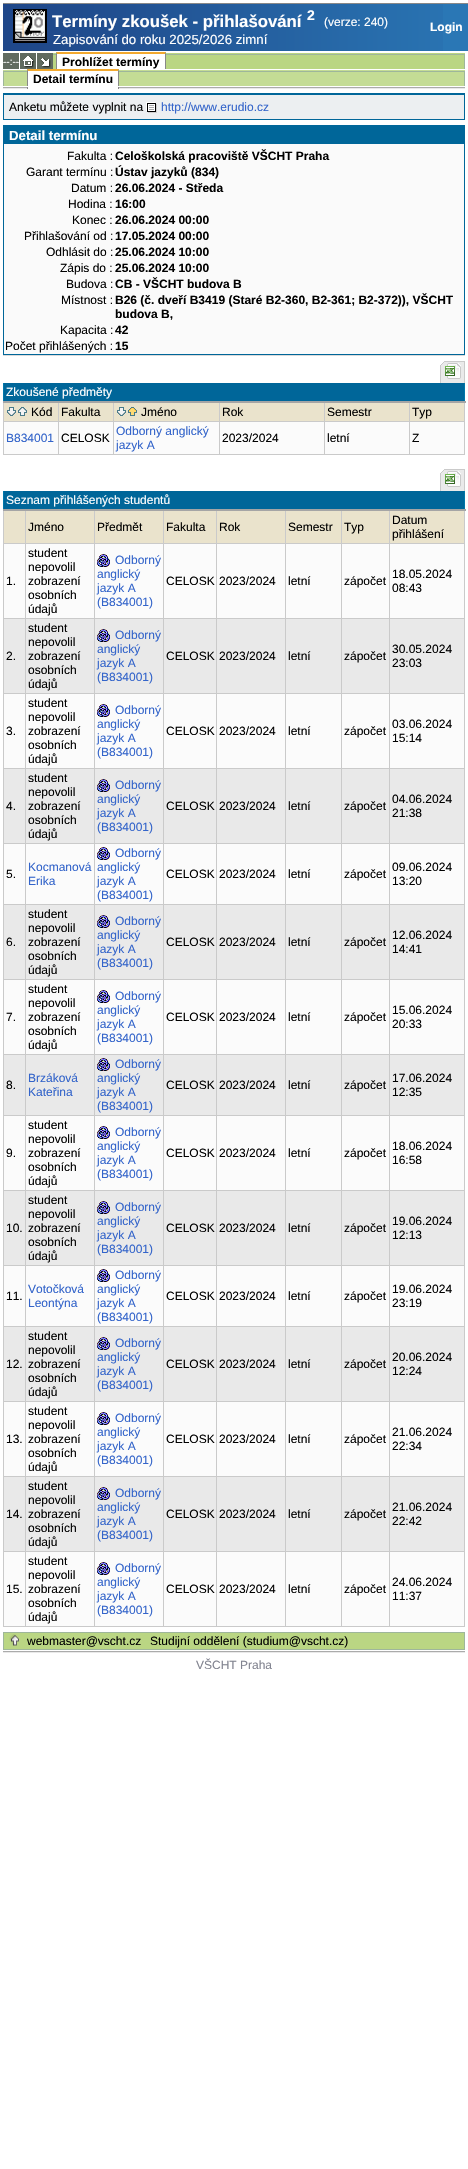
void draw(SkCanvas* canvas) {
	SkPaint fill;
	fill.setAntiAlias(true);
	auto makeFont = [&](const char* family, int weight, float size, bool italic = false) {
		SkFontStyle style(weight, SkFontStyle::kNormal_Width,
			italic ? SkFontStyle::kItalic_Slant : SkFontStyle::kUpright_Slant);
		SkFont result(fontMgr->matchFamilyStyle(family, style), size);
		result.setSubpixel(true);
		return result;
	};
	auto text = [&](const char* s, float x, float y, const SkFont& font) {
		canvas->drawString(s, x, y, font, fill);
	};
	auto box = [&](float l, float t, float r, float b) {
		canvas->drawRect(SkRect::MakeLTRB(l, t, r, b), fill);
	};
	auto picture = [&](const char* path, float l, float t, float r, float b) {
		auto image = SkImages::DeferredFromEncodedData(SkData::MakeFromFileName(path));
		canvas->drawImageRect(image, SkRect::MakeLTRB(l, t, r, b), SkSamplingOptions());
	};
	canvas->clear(0xFFFFFFFF);
	fill.setColor(0xFF2A77B5);
	box(443, 4, 468, 51);
	picture("image0.png", 3, 4, 443, 51);
	fill.setColor(0xFF888888);
	box(3, 3, 468, 4);
	fill.setStyle(SkPaint::kStroke_Style);
	fill.setStrokeWidth(1);
	fill.setColor(0xFF000000);
	canvas->drawRect(SkRect::MakeLTRB(13.5f, 9.5f, 46.5f, 42.5f), fill);
	picture("image1.png", 14, 10, 46, 42);
	fill.setStyle(SkPaint::kFill_Style);
	fill.setColor(0xFFBAD683);
	box(53, 52, 465, 69);
	fill.setColor(0xFF616B60);
	box(3, 53, 19, 69);
	box(20, 53, 36, 69);
	picture("image2.png", 23, 56, 35, 68);
	box(37, 53, 53, 69);
	picture("image3.png", 41, 58, 51, 68);
	fill.setColor(0xFFFFFFFF);
	box(53, 52, 56, 53);
	fill.setColor(0xFF9EB69B);
	box(53, 54, 56, 55);
	fill.setColor(0xFFF2A92F);
	canvas->drawPath(SkPathBuilder().moveTo(56, 52).lineTo(166, 52).lineTo(165, 54).lineTo(57, 54).close().detach(), fill);
	fill.setColor(0xFF888888);
	canvas->drawPath(SkPathBuilder().moveTo(166, 52).lineTo(166, 69).lineTo(165, 69).lineTo(165, 54).close().detach(), fill);
	canvas->drawPath(SkPathBuilder().moveTo(56, 69).lineTo(56, 52).lineTo(57, 54).lineTo(57, 69).close().detach(), fill);
	fill.setColor(0xFFFFFFFF);
	box(57, 54, 165, 69);
	box(166, 52, 465, 53);
	fill.setColor(0xFF9EB69B);
	box(166, 54, 465, 55);
	box(464, 54, 465, 69);
	fill.setColor(0xFFC4DC95);
	box(3, 69, 465, 86);
	fill.setColor(0xFFFFFFFF);
	box(3, 69, 27, 70);
	fill.setColor(0xFF9EB69B);
	box(3, 71, 27, 72);
	box(3, 71, 4, 86);
	fill.setColor(0xFFF2A92F);
	canvas->drawPath(SkPathBuilder().moveTo(27, 69).lineTo(119, 69).lineTo(118, 71).lineTo(28, 71).close().detach(), fill);
	fill.setColor(0xFF888888);
	canvas->drawPath(SkPathBuilder().moveTo(119, 69).lineTo(119, 86).lineTo(118, 86).lineTo(118, 71).close().detach(), fill);
	canvas->drawPath(SkPathBuilder().moveTo(27, 86).lineTo(27, 69).lineTo(28, 71).lineTo(28, 86).close().detach(), fill);
	fill.setColor(0xFFFFFFFF);
	box(28, 71, 118, 86);
	box(119, 69, 465, 70);
	fill.setColor(0xFF9EB69B);
	box(119, 71, 465, 72);
	box(464, 71, 465, 86);
	picture("image4.png", 3, 87, 27, 89);
	fill.setColor(0xFF888888);
	box(118, 87, 119, 89);
	box(27, 87, 28, 89);
	picture("image5.png", 119, 87, 465, 89);
	fill.setColor(0xFFECEFF1);
	box(4, 95, 464, 119);
	fill.setColor(0xFF006699);
	box(3, 93, 465, 95);
	box(464, 93, 465, 120);
	box(3, 119, 465, 120);
	box(3, 93, 4, 120);
	picture("image6.png", 146, 102, 157, 113);
	fill.setColor(0xFFFAFAFA);
	box(4, 144, 464, 354);
	fill.setColor(0xFF006699);
	box(3, 125, 465, 127);
	box(464, 125, 465, 355);
	box(3, 354, 465, 355);
	box(3, 125, 4, 355);
	box(4, 127, 464, 144);
	fill.setColor(0xFFDADADA);
	box(3, 355, 465, 356);
	picture("image7.png", 440, 362, 444, 383);
	fill.setColor(0xFFEAEAEA);
	box(444, 362, 464, 383);
	fill.setColor(0xFFCACACA);
	box(444, 361, 465, 362);
	box(464, 361, 465, 383);
	picture("image8.png", 445, 363, 461, 379);
	fill.setColor(0xFF006699);
	box(4, 383, 464, 401);
	fill.setColor(0xFFCACACA);
	box(3, 421, 465, 422);
	box(464, 402, 465, 455);
	fill.setColor(0xFF0077AA);
	box(464, 383, 465, 403);
	fill.setColor(0xFFCACACA);
	box(3, 454, 465, 455);
	box(3, 402, 4, 455);
	fill.setColor(0xFF0077AA);
	box(3, 383, 4, 403);
	fill.setColor(0xFFEAE3CC);
	box(4, 403, 464, 421);
	fill.setColor(0xFFFBFBFB);
	box(4, 422, 464, 454);
	fill.setColor(0xFFCACACA);
	box(58, 402, 59, 455);
	box(113, 402, 114, 455);
	box(219, 402, 220, 455);
	box(324, 402, 325, 455);
	box(409, 402, 410, 455);
	fill.setColor(0xFFA5A5A5);
	box(3, 401, 466, 403);
	picture("image9.png", 7, 407, 16, 416);
	picture("image10.png", 18, 407, 27, 416);
	picture("image9.png", 117, 407, 126, 416);
	picture("image11.png", 128, 407, 137, 416);
	picture("image7.png", 440, 470, 444, 491);
	fill.setColor(0xFFEAEAEA);
	box(444, 470, 464, 491);
	fill.setColor(0xFFCACACA);
	box(444, 469, 465, 470);
	box(464, 469, 465, 491);
	picture("image8.png", 445, 471, 461, 487);
	fill.setColor(0xFF006699);
	box(4, 491, 464, 509);
	fill.setColor(0xFFCACACA);
	box(3, 543, 465, 544);
	box(3, 618, 465, 619);
	box(3, 693, 465, 694);
	box(3, 768, 465, 769);
	box(3, 843, 465, 844);
	box(3, 904, 465, 905);
	box(3, 979, 465, 980);
	box(3, 1054, 465, 1055);
	box(3, 1115, 465, 1116);
	box(3, 1190, 465, 1191);
	box(3, 1265, 465, 1266);
	box(3, 1326, 465, 1327);
	box(3, 1401, 465, 1402);
	box(3, 1476, 465, 1477);
	box(3, 1551, 465, 1552);
	box(464, 1551, 465, 1627);
	box(464, 1476, 465, 1552);
	box(464, 1401, 465, 1477);
	box(464, 1326, 465, 1402);
	box(464, 1265, 465, 1327);
	box(464, 1190, 465, 1266);
	box(464, 1115, 465, 1191);
	box(464, 1054, 465, 1116);
	box(464, 979, 465, 1055);
	box(464, 904, 465, 980);
	box(464, 843, 465, 905);
	box(464, 768, 465, 844);
	box(464, 693, 465, 769);
	box(464, 618, 465, 694);
	box(464, 510, 465, 619);
	fill.setColor(0xFF0077AA);
	box(464, 491, 465, 511);
	fill.setColor(0xFFCACACA);
	box(3, 1626, 465, 1627);
	box(3, 1551, 4, 1627);
	box(3, 1476, 4, 1552);
	box(3, 1401, 4, 1477);
	box(3, 1326, 4, 1402);
	box(3, 1265, 4, 1327);
	box(3, 1190, 4, 1266);
	box(3, 1115, 4, 1191);
	box(3, 1054, 4, 1116);
	box(3, 979, 4, 1055);
	box(3, 904, 4, 980);
	box(3, 843, 4, 905);
	box(3, 768, 4, 844);
	box(3, 693, 4, 769);
	box(3, 618, 4, 694);
	box(3, 510, 4, 619);
	fill.setColor(0xFF0077AA);
	box(3, 491, 4, 511);
	fill.setColor(0xFFEAE3CC);
	box(4, 511, 464, 543);
	fill.setColor(0xFFFBFBFB);
	box(4, 544, 464, 618);
	fill.setColor(0xFFE9E9E9);
	box(4, 619, 464, 693);
	fill.setColor(0xFFFBFBFB);
	box(4, 694, 464, 768);
	fill.setColor(0xFFE9E9E9);
	box(4, 769, 464, 843);
	fill.setColor(0xFFFBFBFB);
	box(4, 844, 464, 904);
	fill.setColor(0xFFE9E9E9);
	box(4, 905, 464, 979);
	fill.setColor(0xFFFBFBFB);
	box(4, 980, 464, 1054);
	fill.setColor(0xFFE9E9E9);
	box(4, 1055, 464, 1115);
	fill.setColor(0xFFFBFBFB);
	box(4, 1116, 464, 1190);
	fill.setColor(0xFFE9E9E9);
	box(4, 1191, 464, 1265);
	fill.setColor(0xFFFBFBFB);
	box(4, 1266, 464, 1326);
	fill.setColor(0xFFE9E9E9);
	box(4, 1327, 464, 1401);
	fill.setColor(0xFFFBFBFB);
	box(4, 1402, 464, 1476);
	fill.setColor(0xFFE9E9E9);
	box(4, 1477, 464, 1551);
	fill.setColor(0xFFFBFBFB);
	box(4, 1552, 464, 1626);
	fill.setColor(0xFFCACACA);
	box(25, 510, 26, 1627);
	box(94, 510, 95, 1627);
	box(163, 510, 164, 1627);
	box(216, 510, 217, 1627);
	box(285, 510, 286, 1627);
	box(341, 510, 342, 1627);
	box(389, 510, 390, 1627);
	fill.setColor(0xFFA5A5A5);
	box(3, 509, 466, 511);
	picture("image12.png", 97, 554, 110, 567);
	picture("image13.png", 97, 629, 110, 642);
	picture("image12.png", 97, 704, 110, 717);
	picture("image13.png", 97, 779, 110, 792);
	picture("image12.png", 97, 847, 110, 860);
	picture("image13.png", 97, 915, 110, 928);
	picture("image12.png", 97, 990, 110, 1003);
	picture("image13.png", 97, 1058, 110, 1071);
	picture("image12.png", 97, 1126, 110, 1139);
	picture("image13.png", 97, 1201, 110, 1214);
	picture("image12.png", 97, 1269, 110, 1282);
	picture("image13.png", 97, 1337, 110, 1350);
	picture("image12.png", 97, 1412, 110, 1425);
	picture("image13.png", 97, 1487, 110, 1500);
	picture("image12.png", 97, 1562, 110, 1575);
	fill.setStyle(SkPaint::kStroke_Style);
	fill.setColor(0xFF9EB69B);
	canvas->drawRect(SkRect::MakeLTRB(3.5f, 1632.5f, 464.5f, 1649.5f), fill);
	fill.setStyle(SkPaint::kFill_Style);
	fill.setColor(0xFFBAD683);
	box(4, 1633, 464, 1649);
	picture("image14.png", 9, 1634, 19, 1646);
	picture("image15.png", 3, 1651, 465, 1653);
	auto font1 = makeFont("Liberation Sans", 700, 16.75f);
	fill.setColor(0xFFFFFFFF);
	text("Termíny zkoušek - přihlašování", 52, 27, font1);
	auto font2 = makeFont("Liberation Sans", 700, 14);
	text("2", 307, 20, font2);
	auto font3 = makeFont("Liberation Sans", 400, 12);
	text("(verze: 240)", 324, 26, font3);
	auto font4 = makeFont("Liberation Sans", 400, 13.25f);
	text("Zapisování do roku 2025/2026 zimní", 53, 44, font4);
	auto font5 = makeFont("Liberation Sans", 700, 12);
	text("Login", 430, 31, font5);
	auto font6 = makeFont("Liberation Sans", 400, 10);
	text("--:--", 3, 65, font6);
	fill.setColor(0xFF000000);
	text("Prohlížet termíny", 62, 66, font5);
	text("Detail termínu", 33, 83, font5);
	text("Anketu můžete vyplnit na", 9, 111, font3);
	fill.setColor(0xFF3364CA);
	text("http://www.erudio.cz", 161, 111, font3);
	auto font7 = makeFont("Liberation Sans", 700, 13.25f);
	fill.setColor(0xFFFFFFFF);
	text("Detail termínu", 9, 140, font7);
	fill.setColor(0xFF000000);
	text("Fakulta :", 67, 160, font3);
	text("Celoškolská pracoviště VŠCHT Praha", 115, 160, font5);
	text("Garant termínu :", 26, 176, font3);
	text("Ústav jazyků (834)", 115, 176, font5);
	text("Datum :", 71, 192, font3);
	text("26.06.2024 - Středa", 115, 192, font5);
	text("Hodina :", 68, 208, font3);
	text("16:00", 115, 208, font5);
	text("Konec :", 72, 224, font3);
	text("26.06.2024 00:00", 115, 224, font5);
	text("Přihlašování od :", 24, 240, font3);
	text("17.05.2024 00:00", 115, 240, font5);
	text("Odhlásit do :", 46, 256, font3);
	text("25.06.2024 10:00", 115, 256, font5);
	text("Zápis do :", 60, 272, font3);
	text("25.06.2024 10:00", 115, 272, font5);
	text("Budova :", 66, 288, font3);
	text("CB - VŠCHT budova B", 115, 288, font5);
	text("Místnost :", 61, 304, font3);
	text("B26 (č. dveří B3419 (Staré B2-360, B2-361; B2-372)), VŠCHT", 115, 304, font5);
	text("budova B,", 115, 318, font5);
	text("Kapacita :", 60, 334, font3);
	text("42", 115, 334, font5);
	text("Počet přihlášených :", 5, 350, font3);
	text("15", 115, 350, font5);
	fill.setColor(0xFFFFFFFF);
	text("Zkoušené předměty", 6, 396, font3);
	fill.setColor(0xFF000000);
	text("Kód", 31, 416, font3);
	text("Fakulta", 61, 416, font3);
	text("Jméno", 141, 416, font3);
	text("Rok", 222, 416, font3);
	text("Semestr", 327, 416, font3);
	text("Typ", 412, 416, font3);
	fill.setColor(0xFF3364CA);
	text("B834001", 6, 442, font3);
	fill.setColor(0xFF000000);
	text("CELOSK", 61, 442, font3);
	fill.setColor(0xFF3364CA);
	text("Odborný anglický", 116, 435, font3);
	text("jazyk A", 116, 449, font3);
	fill.setColor(0xFF000000);
	text("2023/2024", 222, 442, font3);
	text("letní", 327, 442, font3);
	text("Z", 412, 442, font3);
	fill.setColor(0xFFFFFFFF);
	text("Seznam přihlášených studentů", 6, 504, font3);
	fill.setColor(0xFF000000);
	text("Jméno", 28, 531, font3);
	text("Předmět", 97, 531, font3);
	text("Fakulta", 166, 531, font3);
	text("Rok", 219, 531, font3);
	text("Semestr", 288, 531, font3);
	text("Typ", 344, 531, font3);
	text("Datum", 392, 524, font3);
	text("přihlášení", 392, 538, font3);
	text("1.", 6, 585, font3);
	text("student", 28, 557, font3);
	text("nepovolil", 28, 571, font3);
	text("zobrazení", 28, 585, font3);
	text("osobních", 28, 599, font3);
	text("údajů", 28, 613, font3);
	fill.setColor(0xFF3364CA);
	text("Odborný", 115, 564, font3);
	text("anglický", 97, 578, font3);
	text("jazyk A", 97, 592, font3);
	text("(B834001)", 97, 606, font3);
	fill.setColor(0xFF000000);
	text("CELOSK", 166, 585, font3);
	text("2023/2024", 219, 585, font3);
	text("letní", 288, 585, font3);
	text("zápočet", 344, 585, font3);
	text("18.05.2024", 392, 578, font3);
	text("08:43", 392, 592, font3);
	text("2.", 6, 660, font3);
	text("student", 28, 632, font3);
	text("nepovolil", 28, 646, font3);
	text("zobrazení", 28, 660, font3);
	text("osobních", 28, 674, font3);
	text("údajů", 28, 688, font3);
	fill.setColor(0xFF3364CA);
	text("Odborný", 115, 639, font3);
	text("anglický", 97, 653, font3);
	text("jazyk A", 97, 667, font3);
	text("(B834001)", 97, 681, font3);
	fill.setColor(0xFF000000);
	text("CELOSK", 166, 660, font3);
	text("2023/2024", 219, 660, font3);
	text("letní", 288, 660, font3);
	text("zápočet", 344, 660, font3);
	text("30.05.2024", 392, 653, font3);
	text("23:03", 392, 667, font3);
	text("3.", 6, 735, font3);
	text("student", 28, 707, font3);
	text("nepovolil", 28, 721, font3);
	text("zobrazení", 28, 735, font3);
	text("osobních", 28, 749, font3);
	text("údajů", 28, 763, font3);
	fill.setColor(0xFF3364CA);
	text("Odborný", 115, 714, font3);
	text("anglický", 97, 728, font3);
	text("jazyk A", 97, 742, font3);
	text("(B834001)", 97, 756, font3);
	fill.setColor(0xFF000000);
	text("CELOSK", 166, 735, font3);
	text("2023/2024", 219, 735, font3);
	text("letní", 288, 735, font3);
	text("zápočet", 344, 735, font3);
	text("03.06.2024", 392, 728, font3);
	text("15:14", 392, 742, font3);
	text("4.", 6, 810, font3);
	text("student", 28, 782, font3);
	text("nepovolil", 28, 796, font3);
	text("zobrazení", 28, 810, font3);
	text("osobních", 28, 824, font3);
	text("údajů", 28, 838, font3);
	fill.setColor(0xFF3364CA);
	text("Odborný", 115, 789, font3);
	text("anglický", 97, 803, font3);
	text("jazyk A", 97, 817, font3);
	text("(B834001)", 97, 831, font3);
	fill.setColor(0xFF000000);
	text("CELOSK", 166, 810, font3);
	text("2023/2024", 219, 810, font3);
	text("letní", 288, 810, font3);
	text("zápočet", 344, 810, font3);
	text("04.06.2024", 392, 803, font3);
	text("21:38", 392, 817, font3);
	text("5.", 6, 878, font3);
	fill.setColor(0xFF3364CA);
	text("Kocmanová", 28, 871, font3);
	text("Erika", 28, 885, font3);
	text("Odborný", 115, 857, font3);
	text("anglický", 97, 871, font3);
	text("jazyk A", 97, 885, font3);
	text("(B834001)", 97, 899, font3);
	fill.setColor(0xFF000000);
	text("CELOSK", 166, 878, font3);
	text("2023/2024", 219, 878, font3);
	text("letní", 288, 878, font3);
	text("zápočet", 344, 878, font3);
	text("09.06.2024", 392, 871, font3);
	text("13:20", 392, 885, font3);
	text("6.", 6, 946, font3);
	text("student", 28, 918, font3);
	text("nepovolil", 28, 932, font3);
	text("zobrazení", 28, 946, font3);
	text("osobních", 28, 960, font3);
	text("údajů", 28, 974, font3);
	fill.setColor(0xFF3364CA);
	text("Odborný", 115, 925, font3);
	text("anglický", 97, 939, font3);
	text("jazyk A", 97, 953, font3);
	text("(B834001)", 97, 967, font3);
	fill.setColor(0xFF000000);
	text("CELOSK", 166, 946, font3);
	text("2023/2024", 219, 946, font3);
	text("letní", 288, 946, font3);
	text("zápočet", 344, 946, font3);
	text("12.06.2024", 392, 939, font3);
	text("14:41", 392, 953, font3);
	text("7.", 6, 1021, font3);
	text("student", 28, 993, font3);
	text("nepovolil", 28, 1007, font3);
	text("zobrazení", 28, 1021, font3);
	text("osobních", 28, 1035, font3);
	text("údajů", 28, 1049, font3);
	fill.setColor(0xFF3364CA);
	text("Odborný", 115, 1000, font3);
	text("anglický", 97, 1014, font3);
	text("jazyk A", 97, 1028, font3);
	text("(B834001)", 97, 1042, font3);
	fill.setColor(0xFF000000);
	text("CELOSK", 166, 1021, font3);
	text("2023/2024", 219, 1021, font3);
	text("letní", 288, 1021, font3);
	text("zápočet", 344, 1021, font3);
	text("15.06.2024", 392, 1014, font3);
	text("20:33", 392, 1028, font3);
	text("8.", 6, 1089, font3);
	fill.setColor(0xFF3364CA);
	text("Brzáková", 28, 1082, font3);
	text("Kateřina", 28, 1096, font3);
	text("Odborný", 115, 1068, font3);
	text("anglický", 97, 1082, font3);
	text("jazyk A", 97, 1096, font3);
	text("(B834001)", 97, 1110, font3);
	fill.setColor(0xFF000000);
	text("CELOSK", 166, 1089, font3);
	text("2023/2024", 219, 1089, font3);
	text("letní", 288, 1089, font3);
	text("zápočet", 344, 1089, font3);
	text("17.06.2024", 392, 1082, font3);
	text("12:35", 392, 1096, font3);
	text("9.", 6, 1157, font3);
	text("student", 28, 1129, font3);
	text("nepovolil", 28, 1143, font3);
	text("zobrazení", 28, 1157, font3);
	text("osobních", 28, 1171, font3);
	text("údajů", 28, 1185, font3);
	fill.setColor(0xFF3364CA);
	text("Odborný", 115, 1136, font3);
	text("anglický", 97, 1150, font3);
	text("jazyk A", 97, 1164, font3);
	text("(B834001)", 97, 1178, font3);
	fill.setColor(0xFF000000);
	text("CELOSK", 166, 1157, font3);
	text("2023/2024", 219, 1157, font3);
	text("letní", 288, 1157, font3);
	text("zápočet", 344, 1157, font3);
	text("18.06.2024", 392, 1150, font3);
	text("16:58", 392, 1164, font3);
	text("10.", 6, 1232, font3);
	text("student", 28, 1204, font3);
	text("nepovolil", 28, 1218, font3);
	text("zobrazení", 28, 1232, font3);
	text("osobních", 28, 1246, font3);
	text("údajů", 28, 1260, font3);
	fill.setColor(0xFF3364CA);
	text("Odborný", 115, 1211, font3);
	text("anglický", 97, 1225, font3);
	text("jazyk A", 97, 1239, font3);
	text("(B834001)", 97, 1253, font3);
	fill.setColor(0xFF000000);
	text("CELOSK", 166, 1232, font3);
	text("2023/2024", 219, 1232, font3);
	text("letní", 288, 1232, font3);
	text("zápočet", 344, 1232, font3);
	text("19.06.2024", 392, 1225, font3);
	text("12:13", 392, 1239, font3);
	text("11.", 6, 1300, font3);
	fill.setColor(0xFF3364CA);
	text("Votočková", 28, 1293, font3);
	text("Leontýna", 28, 1307, font3);
	text("Odborný", 115, 1279, font3);
	text("anglický", 97, 1293, font3);
	text("jazyk A", 97, 1307, font3);
	text("(B834001)", 97, 1321, font3);
	fill.setColor(0xFF000000);
	text("CELOSK", 166, 1300, font3);
	text("2023/2024", 219, 1300, font3);
	text("letní", 288, 1300, font3);
	text("zápočet", 344, 1300, font3);
	text("19.06.2024", 392, 1293, font3);
	text("23:19", 392, 1307, font3);
	text("12.", 6, 1368, font3);
	text("student", 28, 1340, font3);
	text("nepovolil", 28, 1354, font3);
	text("zobrazení", 28, 1368, font3);
	text("osobních", 28, 1382, font3);
	text("údajů", 28, 1396, font3);
	fill.setColor(0xFF3364CA);
	text("Odborný", 115, 1347, font3);
	text("anglický", 97, 1361, font3);
	text("jazyk A", 97, 1375, font3);
	text("(B834001)", 97, 1389, font3);
	fill.setColor(0xFF000000);
	text("CELOSK", 166, 1368, font3);
	text("2023/2024", 219, 1368, font3);
	text("letní", 288, 1368, font3);
	text("zápočet", 344, 1368, font3);
	text("20.06.2024", 392, 1361, font3);
	text("12:24", 392, 1375, font3);
	text("13.", 6, 1443, font3);
	text("student", 28, 1415, font3);
	text("nepovolil", 28, 1429, font3);
	text("zobrazení", 28, 1443, font3);
	text("osobních", 28, 1457, font3);
	text("údajů", 28, 1471, font3);
	fill.setColor(0xFF3364CA);
	text("Odborný", 115, 1422, font3);
	text("anglický", 97, 1436, font3);
	text("jazyk A", 97, 1450, font3);
	text("(B834001)", 97, 1464, font3);
	fill.setColor(0xFF000000);
	text("CELOSK", 166, 1443, font3);
	text("2023/2024", 219, 1443, font3);
	text("letní", 288, 1443, font3);
	text("zápočet", 344, 1443, font3);
	text("21.06.2024", 392, 1436, font3);
	text("22:34", 392, 1450, font3);
	text("14.", 6, 1518, font3);
	text("student", 28, 1490, font3);
	text("nepovolil", 28, 1504, font3);
	text("zobrazení", 28, 1518, font3);
	text("osobních", 28, 1532, font3);
	text("údajů", 28, 1546, font3);
	fill.setColor(0xFF3364CA);
	text("Odborný", 115, 1497, font3);
	text("anglický", 97, 1511, font3);
	text("jazyk A", 97, 1525, font3);
	text("(B834001)", 97, 1539, font3);
	fill.setColor(0xFF000000);
	text("CELOSK", 166, 1518, font3);
	text("2023/2024", 219, 1518, font3);
	text("letní", 288, 1518, font3);
	text("zápočet", 344, 1518, font3);
	text("21.06.2024", 392, 1511, font3);
	text("22:42", 392, 1525, font3);
	text("15.", 6, 1593, font3);
	text("student", 28, 1565, font3);
	text("nepovolil", 28, 1579, font3);
	text("zobrazení", 28, 1593, font3);
	text("osobních", 28, 1607, font3);
	text("údajů", 28, 1621, font3);
	fill.setColor(0xFF3364CA);
	text("Odborný", 115, 1572, font3);
	text("anglický", 97, 1586, font3);
	text("jazyk A", 97, 1600, font3);
	text("(B834001)", 97, 1614, font3);
	fill.setColor(0xFF000000);
	text("CELOSK", 166, 1593, font3);
	text("2023/2024", 219, 1593, font3);
	text("letní", 288, 1593, font3);
	text("zápočet", 344, 1593, font3);
	text("24.06.2024", 392, 1586, font3);
	text("11:37", 392, 1600, font3);
	text("webmaster@vscht.cz", 27, 1645, font3);
	text("Studijní oddělení (studium@vscht.cz)", 150, 1645, font3);
	fill.setColor(0xFF828490);
	text("VŠCHT Praha", 196, 1669, font3);
}
